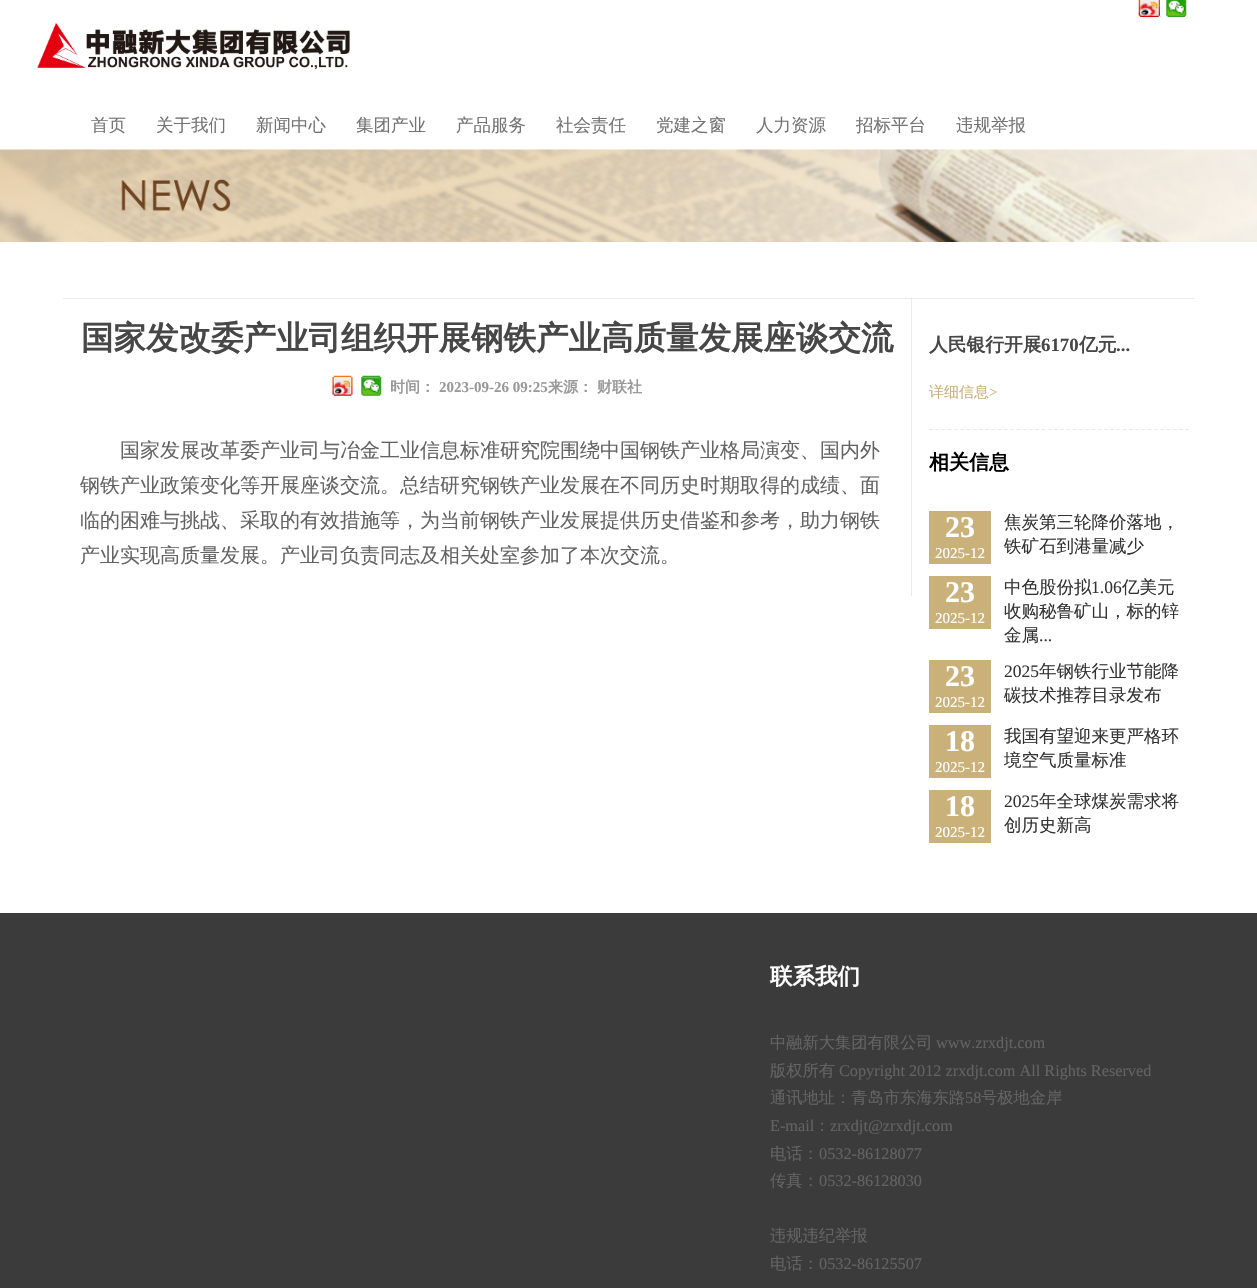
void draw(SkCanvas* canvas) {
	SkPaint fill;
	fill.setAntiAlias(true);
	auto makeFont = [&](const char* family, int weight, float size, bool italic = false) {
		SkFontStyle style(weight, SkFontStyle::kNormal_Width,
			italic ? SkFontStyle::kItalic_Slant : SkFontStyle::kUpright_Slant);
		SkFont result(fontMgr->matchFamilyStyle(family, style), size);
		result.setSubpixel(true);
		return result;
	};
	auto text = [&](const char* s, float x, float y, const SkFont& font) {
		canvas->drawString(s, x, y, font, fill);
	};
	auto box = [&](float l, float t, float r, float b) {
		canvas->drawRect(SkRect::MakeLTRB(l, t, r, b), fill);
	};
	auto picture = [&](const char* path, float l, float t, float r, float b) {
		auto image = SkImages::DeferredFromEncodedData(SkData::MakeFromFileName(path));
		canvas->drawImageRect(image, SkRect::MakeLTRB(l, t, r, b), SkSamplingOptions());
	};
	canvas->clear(0xFFFFFFFF);
	picture("image0.png", 1138, 0, 1160, 17);
	picture("image1.png", 1166, 0, 1187, 17);
	picture("image2.png", 37, 23, 350, 70);
	picture("image3.png", 0, 149, 1257, 242);
	fill.setColor(0xFFEAEAEA);
	box(63, 298, 1195, 299);
	box(911, 299, 912, 596);
	picture("image4.png", 332, 375, 353, 396);
	picture("image5.png", 361, 375, 382, 396);
	fill.setStyle(SkPaint::kStroke_Style);
	fill.setStrokeWidth(1.2f);
	fill.setColor(0xFFE8E9EE);
	fill.setPathEffect(SkDashPathEffect::Make({{3.75f, 2.5f}}, 0));
	canvas->drawPath(SkPathBuilder().moveTo(929, 429.5f).lineTo(1189, 429.5f).detach(), fill);
	fill.setPathEffect(nullptr);
	fill.setStyle(SkPaint::kFill_Style);
	fill.setColor(0xFFCAB179);
	box(929, 511, 991, 564);
	box(929, 576, 991, 629);
	box(929, 660, 991, 713);
	box(929, 725, 991, 778);
	box(929, 790, 991, 843);
	fill.setColor(0xFF3B3B3B);
	box(0, 913, 1257, 1288);
	auto font1 = makeFont("WenQuanYi Zen Hei", 500, 17.5f);
	fill.setColor(0xFF737373);
	text("首页", 91, 131, font1);
	text("关于我们", 156, 131, font1);
	text("新闻中心", 256, 131, font1);
	text("集团产业", 356, 131, font1);
	text("产品服务", 456, 131, font1);
	text("社会责任", 556, 131, font1);
	text("党建之窗", 656, 131, font1);
	text("人力资源", 756, 131, font1);
	text("招标平台", 856, 131, font1);
	text("违规举报", 956, 131, font1);
	auto font2 = makeFont("WenQuanYi Zen Hei", 700, 32.5f);
	fill.setColor(0xFF474747);
	text("国家发改委产业司组织开展钢铁产业高质量发展座谈交流", 81, 349, font2);
	auto font3 = makeFont("WenQuanYi Zen Hei", 700, 15);
	fill.setColor(0xFF999999);
	text("时间：", 390, 392, font3);
	auto font4 = makeFont("Liberation Serif", 700, 15);
	text("2023-09-26 09:25", 439, 392, font4);
	text("来源：", 548, 392, font3);
	text("财联社", 597, 392, font3);
	auto font5 = makeFont("WenQuanYi Zen Hei", 500, 20);
	fill.setColor(0xFF636363);
	text("国家发展改革委产业司与冶金工业信息标准研究院围绕中国钢铁产业格局演变、国内外", 120, 457, font5);
	text("钢铁产业政策变化等开展座谈交流。总结研究钢铁产业发展在不同历史时期取得的成绩、面", 80, 492, font5);
	text("临的困难与挑战、采取的有效措施等，为当前钢铁产业发展提供历史借鉴和参考，助力钢铁", 80, 527, font5);
	text("产业实现高质量发展。产业司负责同志及相关处室参加了本次交流。", 80, 562, font5);
	auto font6 = makeFont("WenQuanYi Zen Hei", 700, 18.75f);
	fill.setColor(0xFF474747);
	text("人民银行开展", 929, 351, font6);
	auto font7 = makeFont("Liberation Serif", 700, 18.75f);
	text("6170", 1041, 351, font7);
	text("亿元", 1079, 351, font6);
	text("...", 1116, 351, font7);
	auto font8 = makeFont("WenQuanYi Zen Hei", 500, 15);
	fill.setColor(0xFFCAB179);
	text("详细信息", 929, 397, font8);
	auto font9 = makeFont("Liberation Serif", 400, 15);
	text(">", 989, 397, font9);
	auto font10 = makeFont("WenQuanYi Zen Hei", 700, 20);
	fill.setColor(0xFF000000);
	text("相关信息", 929, 469, font10);
	auto font11 = makeFont("Liberation Serif", 700, 30);
	fill.setColor(0xFFFFFFFF);
	text("23", 945, 537, font11);
	text("2025-12", 935, 558, font9);
	fill.setColor(0xFF333333);
	text("焦炭第三轮降价落地，", 1004, 528, font1);
	text("铁矿石到港量减少", 1004, 552, font1);
	fill.setColor(0xFFFFFFFF);
	text("23", 945, 602, font11);
	text("2025-12", 935, 623, font9);
	fill.setColor(0xFF333333);
	text("中色股份拟", 1004, 593, font1);
	auto font12 = makeFont("Liberation Serif", 400, 17.5f);
	text("1.06", 1091, 593, font12);
	text("亿美元", 1122, 593, font1);
	text("收购秘鲁矿山，标的锌", 1004, 617, font1);
	text("金属", 1004, 641, font1);
	text("...", 1039, 641, font12);
	fill.setColor(0xFFFFFFFF);
	text("23", 945, 686, font11);
	text("2025-12", 935, 707, font9);
	fill.setColor(0xFF333333);
	text("2025", 1004, 677, font12);
	text("年钢铁行业节能降", 1039, 677, font1);
	text("碳技术推荐目录发布", 1004, 701, font1);
	fill.setColor(0xFFFFFFFF);
	text("18", 945, 751, font11);
	text("2025-12", 935, 772, font9);
	fill.setColor(0xFF333333);
	text("我国有望迎来更严格环", 1004, 742, font1);
	text("境空气质量标准", 1004, 766, font1);
	fill.setColor(0xFFFFFFFF);
	text("18", 945, 816, font11);
	text("2025-12", 935, 837, font9);
	fill.setColor(0xFF333333);
	text("2025", 1004, 807, font12);
	text("年全球煤炭需求将", 1039, 807, font1);
	text("创历史新高", 1004, 831, font1);
	auto font13 = makeFont("WenQuanYi Zen Hei", 700, 22.5f);
	fill.setColor(0xFFFFFFFF);
	text("联系我们", 770, 984, font13);
	auto font14 = makeFont("WenQuanYi Zen Hei", 500, 16.25f);
	fill.setColor(0xFF636363);
	text("中融新大集团有限公司", 770, 1048, font14);
	auto font15 = makeFont("Liberation Serif", 400, 16.25f);
	text("www.zrxdjt.com", 936, 1048, font15);
	text("版权所有", 770, 1076, font14);
	text("Copyright 2012 zrxdjt.com All Rights Reserved", 839, 1076, font15);
	text("通讯地址：青岛市东海东路", 770, 1103, font14);
	text("58", 965, 1103, font15);
	text("号极地金岸", 981, 1103, font14);
	text("E-mail", 770, 1131, font15);
	text("：", 814, 1131, font14);
	text("zrxdjt@zrxdjt.com", 830, 1131, font15);
	text("电话：", 770, 1159, font14);
	text("0532-86128077", 819, 1159, font15);
	text("传真：", 770, 1186, font14);
	text("0532-86128030", 819, 1186, font15);
	text("违规违纪举报", 770, 1241, font14);
	text("电话：", 770, 1269, font14);
	text("0532-86125507", 819, 1269, font15);
}
